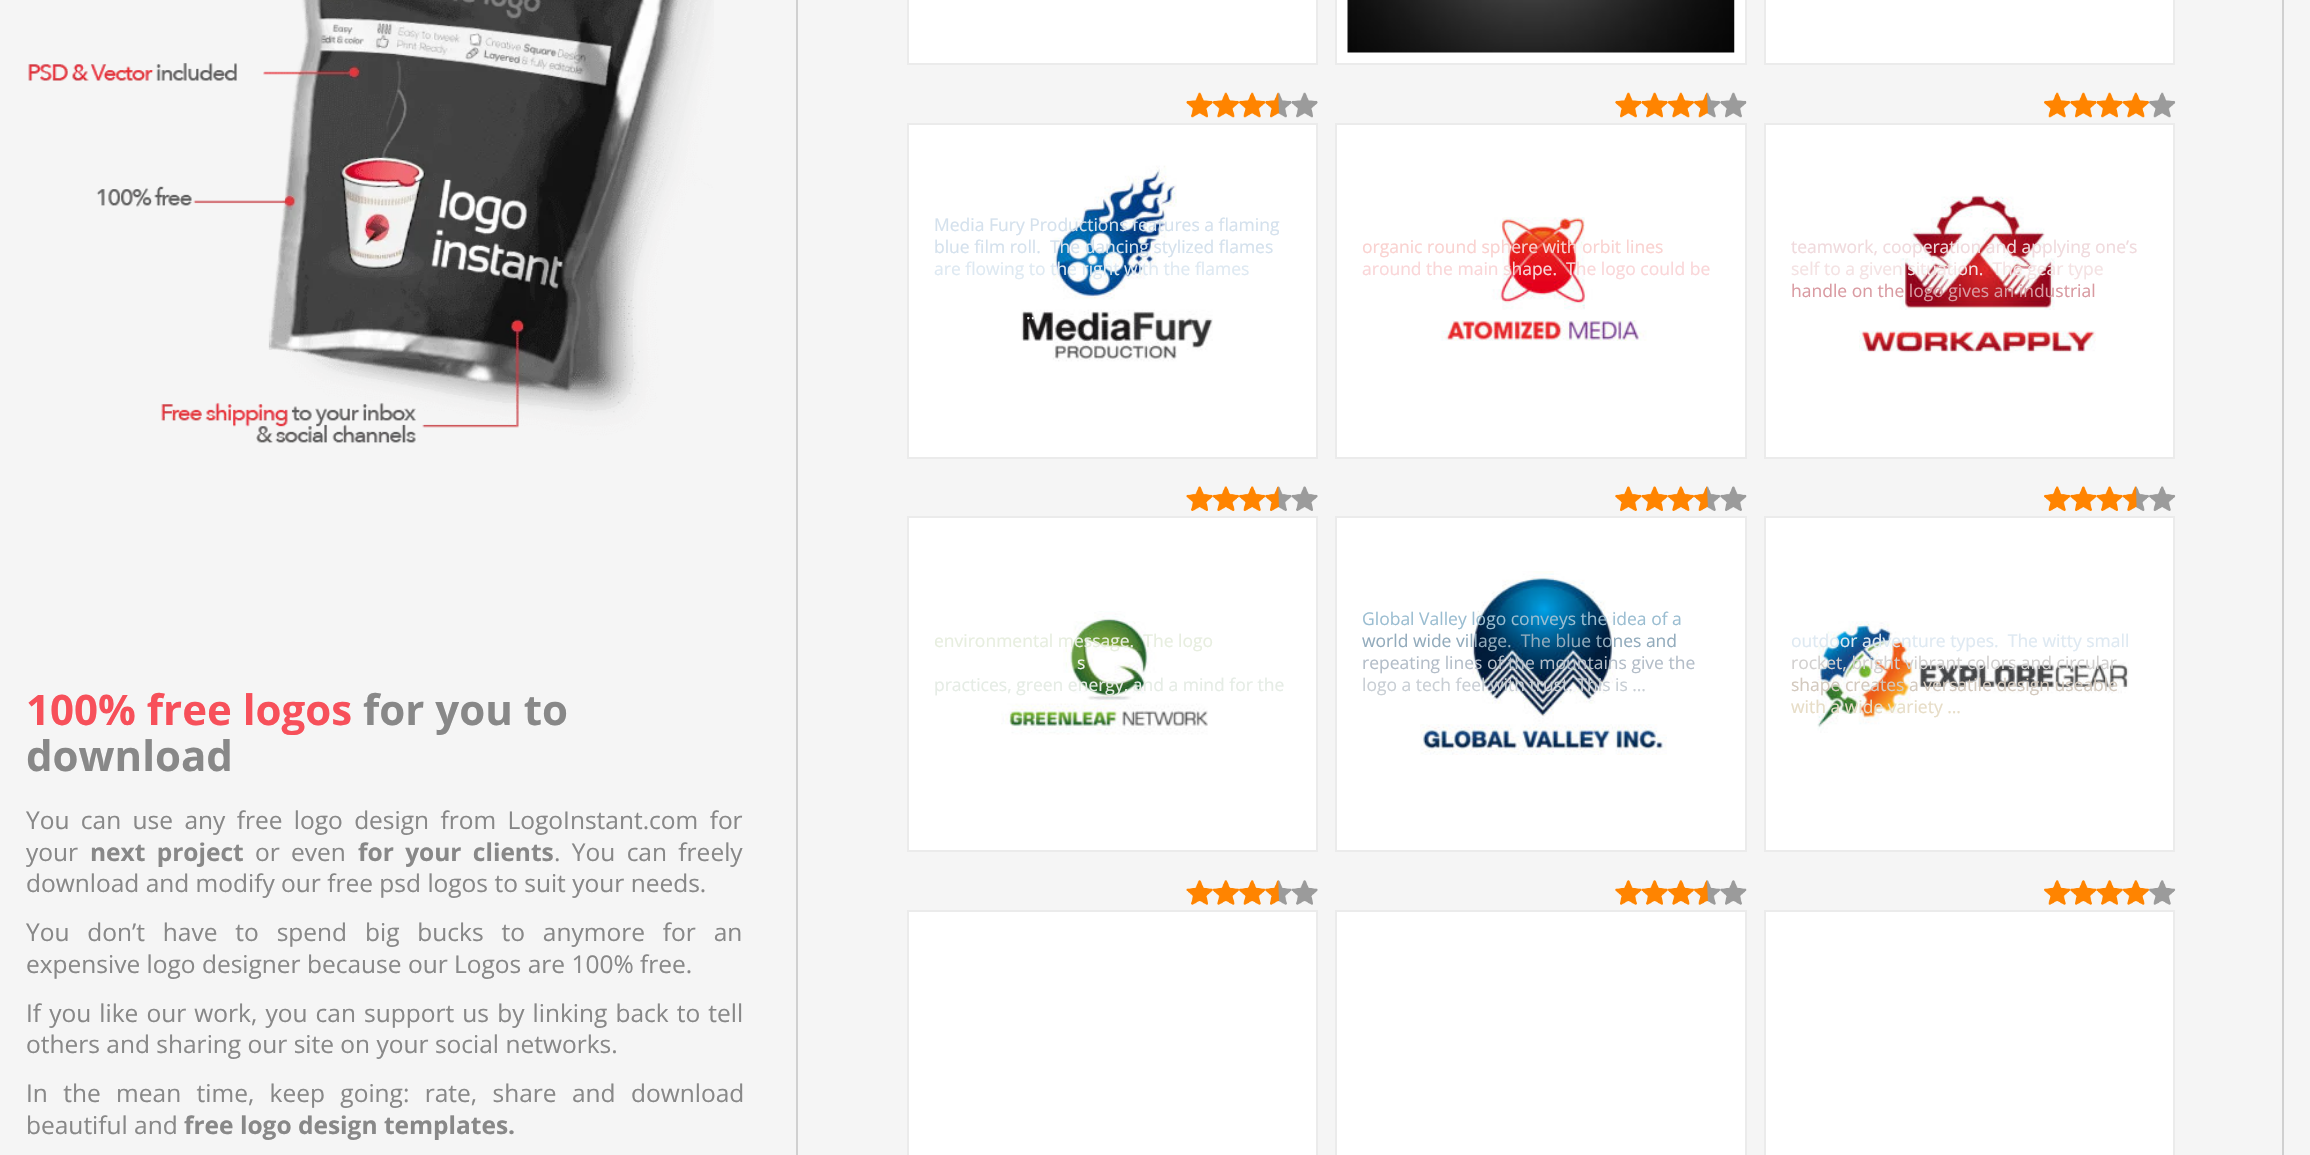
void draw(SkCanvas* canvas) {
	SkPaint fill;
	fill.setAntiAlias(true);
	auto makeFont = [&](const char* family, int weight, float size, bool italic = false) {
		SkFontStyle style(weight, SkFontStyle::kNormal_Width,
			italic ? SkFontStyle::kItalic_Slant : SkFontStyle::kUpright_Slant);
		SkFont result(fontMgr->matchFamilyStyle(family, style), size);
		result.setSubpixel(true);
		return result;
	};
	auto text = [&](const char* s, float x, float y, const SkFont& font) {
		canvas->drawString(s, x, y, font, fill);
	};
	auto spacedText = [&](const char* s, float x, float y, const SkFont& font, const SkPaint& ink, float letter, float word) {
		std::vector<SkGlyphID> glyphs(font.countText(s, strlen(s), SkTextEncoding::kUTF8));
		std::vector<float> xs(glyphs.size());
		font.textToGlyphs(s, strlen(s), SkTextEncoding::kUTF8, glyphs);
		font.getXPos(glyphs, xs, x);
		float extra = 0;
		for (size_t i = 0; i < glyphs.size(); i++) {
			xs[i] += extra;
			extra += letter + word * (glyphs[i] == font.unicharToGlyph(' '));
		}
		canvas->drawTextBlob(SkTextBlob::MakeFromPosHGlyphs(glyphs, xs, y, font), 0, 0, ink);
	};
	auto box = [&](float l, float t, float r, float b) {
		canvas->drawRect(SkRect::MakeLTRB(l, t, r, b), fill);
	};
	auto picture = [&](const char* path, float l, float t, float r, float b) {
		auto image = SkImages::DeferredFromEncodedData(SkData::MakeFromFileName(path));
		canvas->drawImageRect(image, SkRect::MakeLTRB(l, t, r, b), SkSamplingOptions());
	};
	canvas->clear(0xFFF5F5F5);
	fill.setColor(0xFFD0D0D0);
	box(2282, 0, 2284, 1155);
	box(796, 0, 798, 1155);
	fill.setColor(0xFFFFFFFF);
	canvas->drawRect(SkRect::MakeLTRB(908, -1, 1317, 64), fill);
	fill.setStyle(SkPaint::kStroke_Style);
	fill.setStrokeWidth(2);
	fill.setColor(0xFFEBEBEB);
	canvas->drawRect(SkRect::MakeLTRB(908, -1, 1317, 64), fill);
	picture("image0.png", 1186, 92, 1213, 118);
	picture("image1.png", 1212, 92, 1239, 118);
	picture("image2.png", 1239, 92, 1266, 118);
	picture("image3.png", 1265, 92, 1292, 118);
	picture("image4.png", 1291, 92, 1318, 118);
	fill.setStyle(SkPaint::kFill_Style);
	fill.setColor(0xFFFFFFFF);
	canvas->drawRect(SkRect::MakeLTRB(1336, -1, 1746, 64), fill);
	fill.setStyle(SkPaint::kStroke_Style);
	fill.setColor(0xFFEBEBEB);
	canvas->drawRect(SkRect::MakeLTRB(1336, -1, 1746, 64), fill);
	picture("image5.png", 1347, 0, 1735, 53);
	picture("image6.png", 1615, 92, 1642, 118);
	picture("image7.png", 1641, 92, 1668, 118);
	picture("image1.png", 1667, 92, 1694, 118);
	picture("image8.png", 1694, 92, 1721, 118);
	picture("image9.png", 1720, 92, 1747, 118);
	fill.setStyle(SkPaint::kFill_Style);
	fill.setColor(0xFFFFFFFF);
	canvas->drawRect(SkRect::MakeLTRB(1765, -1, 2174, 64), fill);
	fill.setStyle(SkPaint::kStroke_Style);
	fill.setColor(0xFFEBEBEB);
	canvas->drawRect(SkRect::MakeLTRB(1765, -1, 2174, 64), fill);
	picture("image2.png", 2044, 92, 2071, 118);
	picture("image10.png", 2070, 92, 2097, 118);
	picture("image11.png", 2096, 92, 2123, 118);
	picture("image1.png", 2122, 92, 2149, 118);
	picture("image12.png", 2149, 92, 2176, 118);
	fill.setStyle(SkPaint::kFill_Style);
	fill.setColor(0xFFFFFFFF);
	canvas->drawRect(SkRect::MakeLTRB(908, 124, 1317, 458), fill);
	fill.setStyle(SkPaint::kStroke_Style);
	fill.setColor(0xFFEBEBEB);
	canvas->drawRect(SkRect::MakeLTRB(908, 124, 1317, 458), fill);
	picture("image13.png", 1021, 165, 1213, 362);
	picture("image14.png", 1186, 486, 1213, 511);
	picture("image15.png", 1212, 486, 1239, 511);
	picture("image16.png", 1239, 486, 1266, 511);
	picture("image17.png", 1265, 486, 1292, 511);
	picture("image18.png", 1291, 486, 1318, 511);
	fill.setStyle(SkPaint::kFill_Style);
	fill.setColor(0xFFFFFFFF);
	canvas->drawRect(SkRect::MakeLTRB(1336, 124, 1746, 458), fill);
	fill.setStyle(SkPaint::kStroke_Style);
	fill.setColor(0xFFEBEBEB);
	canvas->drawRect(SkRect::MakeLTRB(1336, 124, 1746, 458), fill);
	picture("image19.png", 1440, 217, 1647, 341);
	picture("image20.png", 1615, 486, 1642, 511);
	picture("image21.png", 1641, 486, 1668, 511);
	picture("image15.png", 1667, 486, 1694, 511);
	picture("image22.png", 1694, 486, 1721, 511);
	picture("image23.png", 1720, 486, 1747, 511);
	fill.setStyle(SkPaint::kFill_Style);
	fill.setColor(0xFFFFFFFF);
	canvas->drawRect(SkRect::MakeLTRB(1765, 124, 2174, 458), fill);
	fill.setStyle(SkPaint::kStroke_Style);
	fill.setColor(0xFFEBEBEB);
	canvas->drawRect(SkRect::MakeLTRB(1765, 124, 2174, 458), fill);
	picture("image24.png", 1859, 194, 2096, 353);
	picture("image16.png", 2044, 486, 2071, 511);
	picture("image25.png", 2070, 486, 2097, 511);
	picture("image26.png", 2096, 486, 2123, 511);
	picture("image27.png", 2122, 486, 2149, 511);
	picture("image28.png", 2149, 486, 2176, 511);
	fill.setStyle(SkPaint::kFill_Style);
	fill.setColor(0xFFFFFFFF);
	canvas->drawRect(SkRect::MakeLTRB(908, 517, 1317, 851), fill);
	fill.setStyle(SkPaint::kStroke_Style);
	fill.setColor(0xFFEBEBEB);
	canvas->drawRect(SkRect::MakeLTRB(908, 517, 1317, 851), fill);
	picture("image29.png", 1001, 611, 1208, 735);
	picture("image30.png", 1186, 880, 1213, 905);
	picture("image31.png", 1212, 880, 1239, 905);
	picture("image32.png", 1239, 880, 1266, 905);
	picture("image33.png", 1265, 880, 1292, 905);
	picture("image34.png", 1291, 880, 1318, 905);
	fill.setStyle(SkPaint::kFill_Style);
	fill.setColor(0xFFFFFFFF);
	canvas->drawRect(SkRect::MakeLTRB(1336, 517, 1746, 851), fill);
	fill.setStyle(SkPaint::kStroke_Style);
	fill.setColor(0xFFEBEBEB);
	canvas->drawRect(SkRect::MakeLTRB(1336, 517, 1746, 851), fill);
	picture("image35.png", 1420, 571, 1667, 755);
	picture("image36.png", 1615, 880, 1642, 905);
	picture("image37.png", 1641, 880, 1668, 905);
	picture("image31.png", 1667, 880, 1694, 905);
	picture("image38.png", 1694, 880, 1721, 905);
	picture("image39.png", 1720, 880, 1747, 905);
	fill.setStyle(SkPaint::kFill_Style);
	fill.setColor(0xFFFFFFFF);
	canvas->drawRect(SkRect::MakeLTRB(1765, 517, 2174, 851), fill);
	fill.setStyle(SkPaint::kStroke_Style);
	fill.setColor(0xFFEBEBEB);
	canvas->drawRect(SkRect::MakeLTRB(1765, 517, 2174, 851), fill);
	picture("image40.png", 1817, 621, 2129, 733);
	picture("image32.png", 2044, 880, 2071, 905);
	picture("image41.png", 2070, 880, 2097, 905);
	picture("image42.png", 2096, 880, 2123, 905);
	picture("image31.png", 2122, 880, 2149, 905);
	picture("image43.png", 2149, 880, 2176, 905);
	fill.setStyle(SkPaint::kFill_Style);
	fill.setColor(0xFFFFFFFF);
	canvas->drawRect(SkRect::MakeLTRB(908, 911, 1317, 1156), fill);
	fill.setStyle(SkPaint::kStroke_Style);
	fill.setColor(0xFFEBEBEB);
	canvas->drawRect(SkRect::MakeLTRB(908, 911, 1317, 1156), fill);
	fill.setStyle(SkPaint::kFill_Style);
	fill.setColor(0xFFFFFFFF);
	canvas->drawRect(SkRect::MakeLTRB(1336, 911, 1746, 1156), fill);
	fill.setStyle(SkPaint::kStroke_Style);
	fill.setColor(0xFFEBEBEB);
	canvas->drawRect(SkRect::MakeLTRB(1336, 911, 1746, 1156), fill);
	fill.setStyle(SkPaint::kFill_Style);
	fill.setColor(0xFFFFFFFF);
	canvas->drawRect(SkRect::MakeLTRB(1765, 911, 2174, 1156), fill);
	fill.setStyle(SkPaint::kStroke_Style);
	fill.setColor(0xFFEBEBEB);
	canvas->drawRect(SkRect::MakeLTRB(1765, 911, 2174, 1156), fill);
	picture("image44.png", 28, 0, 714, 443);
	auto font1 = makeFont("Open Sans", 400, 17.5f);
	fill.setStyle(SkPaint::kFill_Style);
	fill.setColor(0xFFD4E1ED);
	text("Media Fury Productions features a flaming", 934, 231, font1);
	text("blue film roll.  The dancing stylized flames", 934, 253, font1);
	fill.setColor(0xFFDEE9F2);
	text("are flowing to the right with the flames", 934, 275, font1);
	fill.setColor(0xFFFAFAFA);
	text("…", 1026, 319, font1);
	fill.setColor(0xFFFAD2D0);
	text("organic round sphere with orbit lines", 1362, 253, font1);
	fill.setColor(0xFFFAD6D8);
	text("around the main shape.  The logo could be", 1362, 275, font1);
	fill.setColor(0xFFF0DADD);
	text("teamwork, cooperation and applying one’s", 1791, 253, font1);
	fill.setColor(0xFFF4E2E3);
	text("self to a given situation.  The gear type", 1791, 275, font1);
	fill.setColor(0xFFD99AA1);
	text("handle on the logo gives an industrial", 1791, 297, font1);
	fill.setColor(0xFFE7EEDF);
	text("environmental message.  The logo", 934, 647, font1);
	fill.setColor(0xFFF1F5EF);
	text("s", 1077, 669, font1);
	fill.setColor(0xFFE5ECE5);
	text("practices, green energy, and a mind for the", 934, 691, font1);
	fill.setColor(0xFF9ABDD1);
	text("Global Valley logo conveys the idea of a", 1362, 625, font1);
	fill.setColor(0xFF92ABBC);
	text("world wide village.  The blue tones and", 1362, 647, font1);
	fill.setColor(0xFFB3BDC8);
	text("repeating lines of the mountains give the", 1362, 669, font1);
	fill.setColor(0xFFC8CED4);
	text("logo a tech feel with trust. This is …", 1362, 691, font1);
	fill.setColor(0xFFDEE9F2);
	text("outdoor adventure types.  The witty small", 1791, 647, font1);
	fill.setColor(0xFFD2D0CF);
	text("rocket, bright vibrant colors and circular", 1791, 669, font1);
	fill.setColor(0xFFD3C9BE);
	text("shape creates a versatile design useable", 1791, 691, font1);
	fill.setColor(0xFFE7DDC7);
	text("with a wide variety …", 1791, 713, font1);
	auto font2 = makeFont("Open Sans", 700, 42);
	fill.setColor(0xFFF7505A);
	text("100% free logos", 26, 725, font2);
	fill.setColor(0xFF888888);
	text("for you to", 363, 725, font2);
	text("download", 26, 771, font2);
	auto font3 = makeFont("Open Sans", 400, 24.5f);
	spacedText("You can use any free logo design from LogoInstant.com for", 26, 829, font3, fill, 0, 5);
	text("your", 26, 861, font3);
	auto font4 = makeFont("Open Sans", 700, 24.5f);
	spacedText("next project", 90, 861, font4, fill, 0, 5);
	spacedText("or even", 255, 861, font3, fill, 0, 5);
	spacedText("for your clients", 358, 861, font4, fill, 0, 5);
	spacedText(". You can freely", 554, 861, font3, fill, 0, 5);
	text("download and modify our free psd logos to suit your needs.", 26, 892, font3);
	spacedText("You don’t have to spend big bucks to anymore for an", 26, 941, font3, fill, 0, 11.5f);
	text("expensive logo designer because our Logos are 100% free.", 26, 973, font3);
	spacedText("If you like our work, you can support us by linking back to tell", 26, 1022, font3, fill, 0, 1.75f);
	text("others and sharing our site on your social networks.", 26, 1053, font3);
	spacedText("In the mean time, keep going: rate, share and download", 26, 1102, font3, fill, 0, 9);
	text("beautiful and", 26, 1134, font3);
	text("free logo design templates.", 184, 1134, font4);
}
